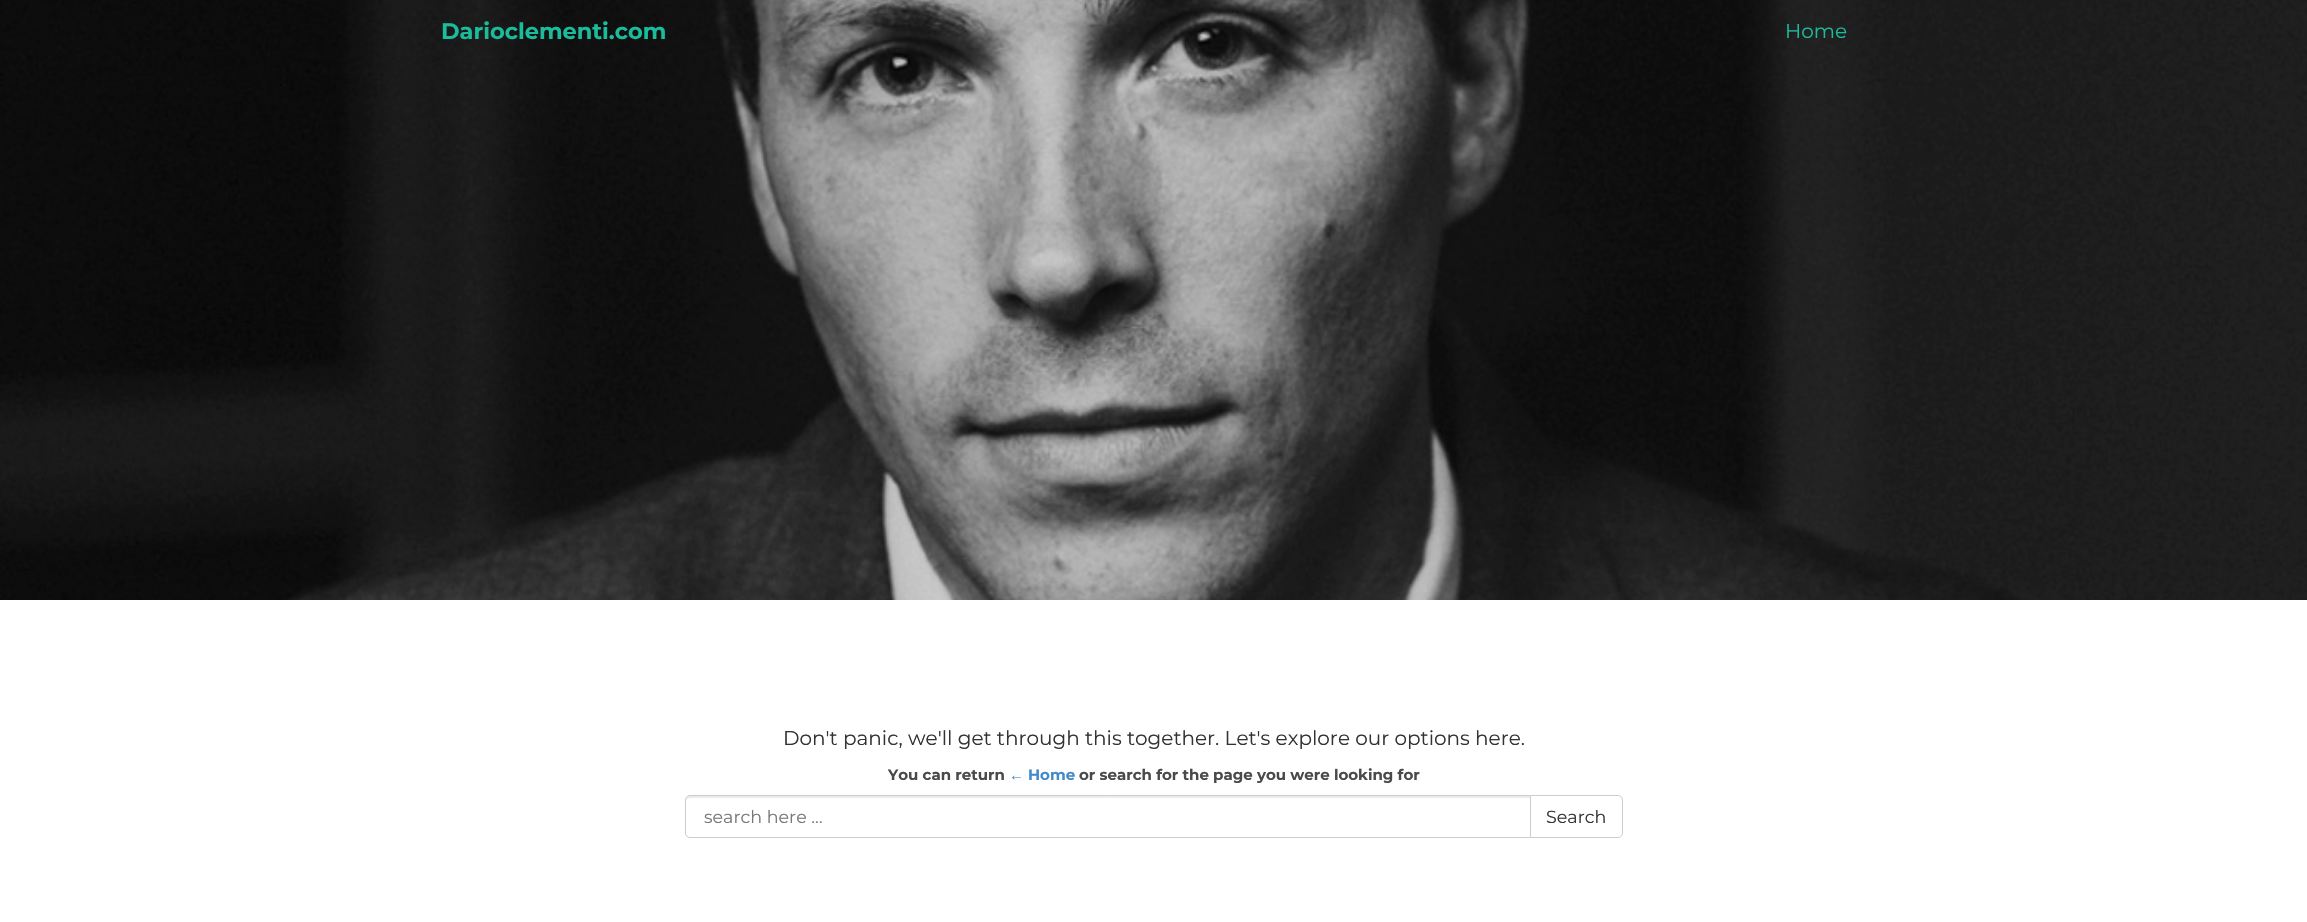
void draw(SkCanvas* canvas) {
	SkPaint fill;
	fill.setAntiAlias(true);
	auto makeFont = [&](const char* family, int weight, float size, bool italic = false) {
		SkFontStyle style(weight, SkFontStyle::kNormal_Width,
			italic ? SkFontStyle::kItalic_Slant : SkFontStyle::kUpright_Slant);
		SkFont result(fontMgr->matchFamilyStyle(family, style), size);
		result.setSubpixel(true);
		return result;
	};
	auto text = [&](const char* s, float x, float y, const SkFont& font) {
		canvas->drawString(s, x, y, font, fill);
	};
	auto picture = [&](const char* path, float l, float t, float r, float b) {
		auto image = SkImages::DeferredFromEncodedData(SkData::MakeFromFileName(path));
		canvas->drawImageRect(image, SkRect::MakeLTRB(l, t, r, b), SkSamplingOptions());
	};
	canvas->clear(0xFFFFFFFF);
	picture("image0.png", 0, 0, 2307, 600);
	fill.setStyle(SkPaint::kStroke_Style);
	fill.setStrokeWidth(1);
	fill.setColor(0xFFCCCCCC);
	canvas->drawPath(SkPathBuilder().moveTo(1530.5f, 795.5f).lineTo(1618, 795.5f).cubicTo(1620.5f, 795.5f, 1622.5f, 797.5f, 1622.5f, 800).lineTo(1622.5f, 833).cubicTo(1622.5f, 835.5f, 1620.5f, 837.5f, 1618, 837.5f).lineTo(1530.5f, 837.5f).close().detach(), fill);
	fill.setStyle(SkPaint::kFill_Style);
	fill.setColor(0xFFFFFFFF);
	canvas->drawPath(SkPathBuilder().moveTo(690, 795).lineTo(1531, 795).lineTo(1531, 838).lineTo(690, 838).cubicTo(687, 838, 685, 836, 685, 833).lineTo(685, 800).cubicTo(685, 797, 687, 795, 690, 795).close().detach(), fill);
	fill.setColor(0xFFECECEC);
	canvas->drawPath(SkPathBuilder().moveTo(690, 798).lineTo(1530, 798).lineTo(1530, 796).lineTo(690, 796).cubicTo(687, 796, 686, 798, 686, 801).cubicTo(686, 799, 688, 798, 690, 798).close().detach(), fill);
	fill.setStyle(SkPaint::kStroke_Style);
	fill.setColor(0xFFCCCCCC);
	canvas->drawPath(SkPathBuilder().moveTo(690, 795.5f).lineTo(1530.5f, 795.5f).lineTo(1530.5f, 837.5f).lineTo(690, 837.5f).cubicTo(687.5f, 837.5f, 685.5f, 835.5f, 685.5f, 833).lineTo(685.5f, 800).cubicTo(685.5f, 797.5f, 687.5f, 795.5f, 690, 795.5f).close().detach(), fill);
	auto font1 = makeFont("Montserrat", 700, 22.5f);
	fill.setStyle(SkPaint::kFill_Style);
	fill.setColor(0xFF1ABC9C);
	text("Darioclementi.com", 441, 39, font1);
	auto font2 = makeFont("Montserrat", 400, 20);
	text("Home", 1785, 38, font2);
	fill.setColor(0xFF333333);
	text("Don't panic, we'll get through this together. Let's explore our options here.", 783, 745, font2);
	auto font3 = makeFont("Montserrat", 700, 15);
	fill.setColor(0xFF4A4A4A);
	text("You can return", 888, 780, font3);
	auto font4 = makeFont("Liberation Sans", 700, 15);
	fill.setColor(0xFF428BCA);
	text("←", 1009, 780, font4);
	text("Home", 1028, 780, font3);
	fill.setColor(0xFF4A4A4A);
	text("or search for the page you were looking for", 1079, 780, font3);
	auto font5 = makeFont("Montserrat", 400, 17.5f);
	fill.setColor(0xFF777777);
	text("search here …", 704, 823, font5);
	fill.setColor(0xFF333333);
	text("Search", 1546, 823, font5);
}
